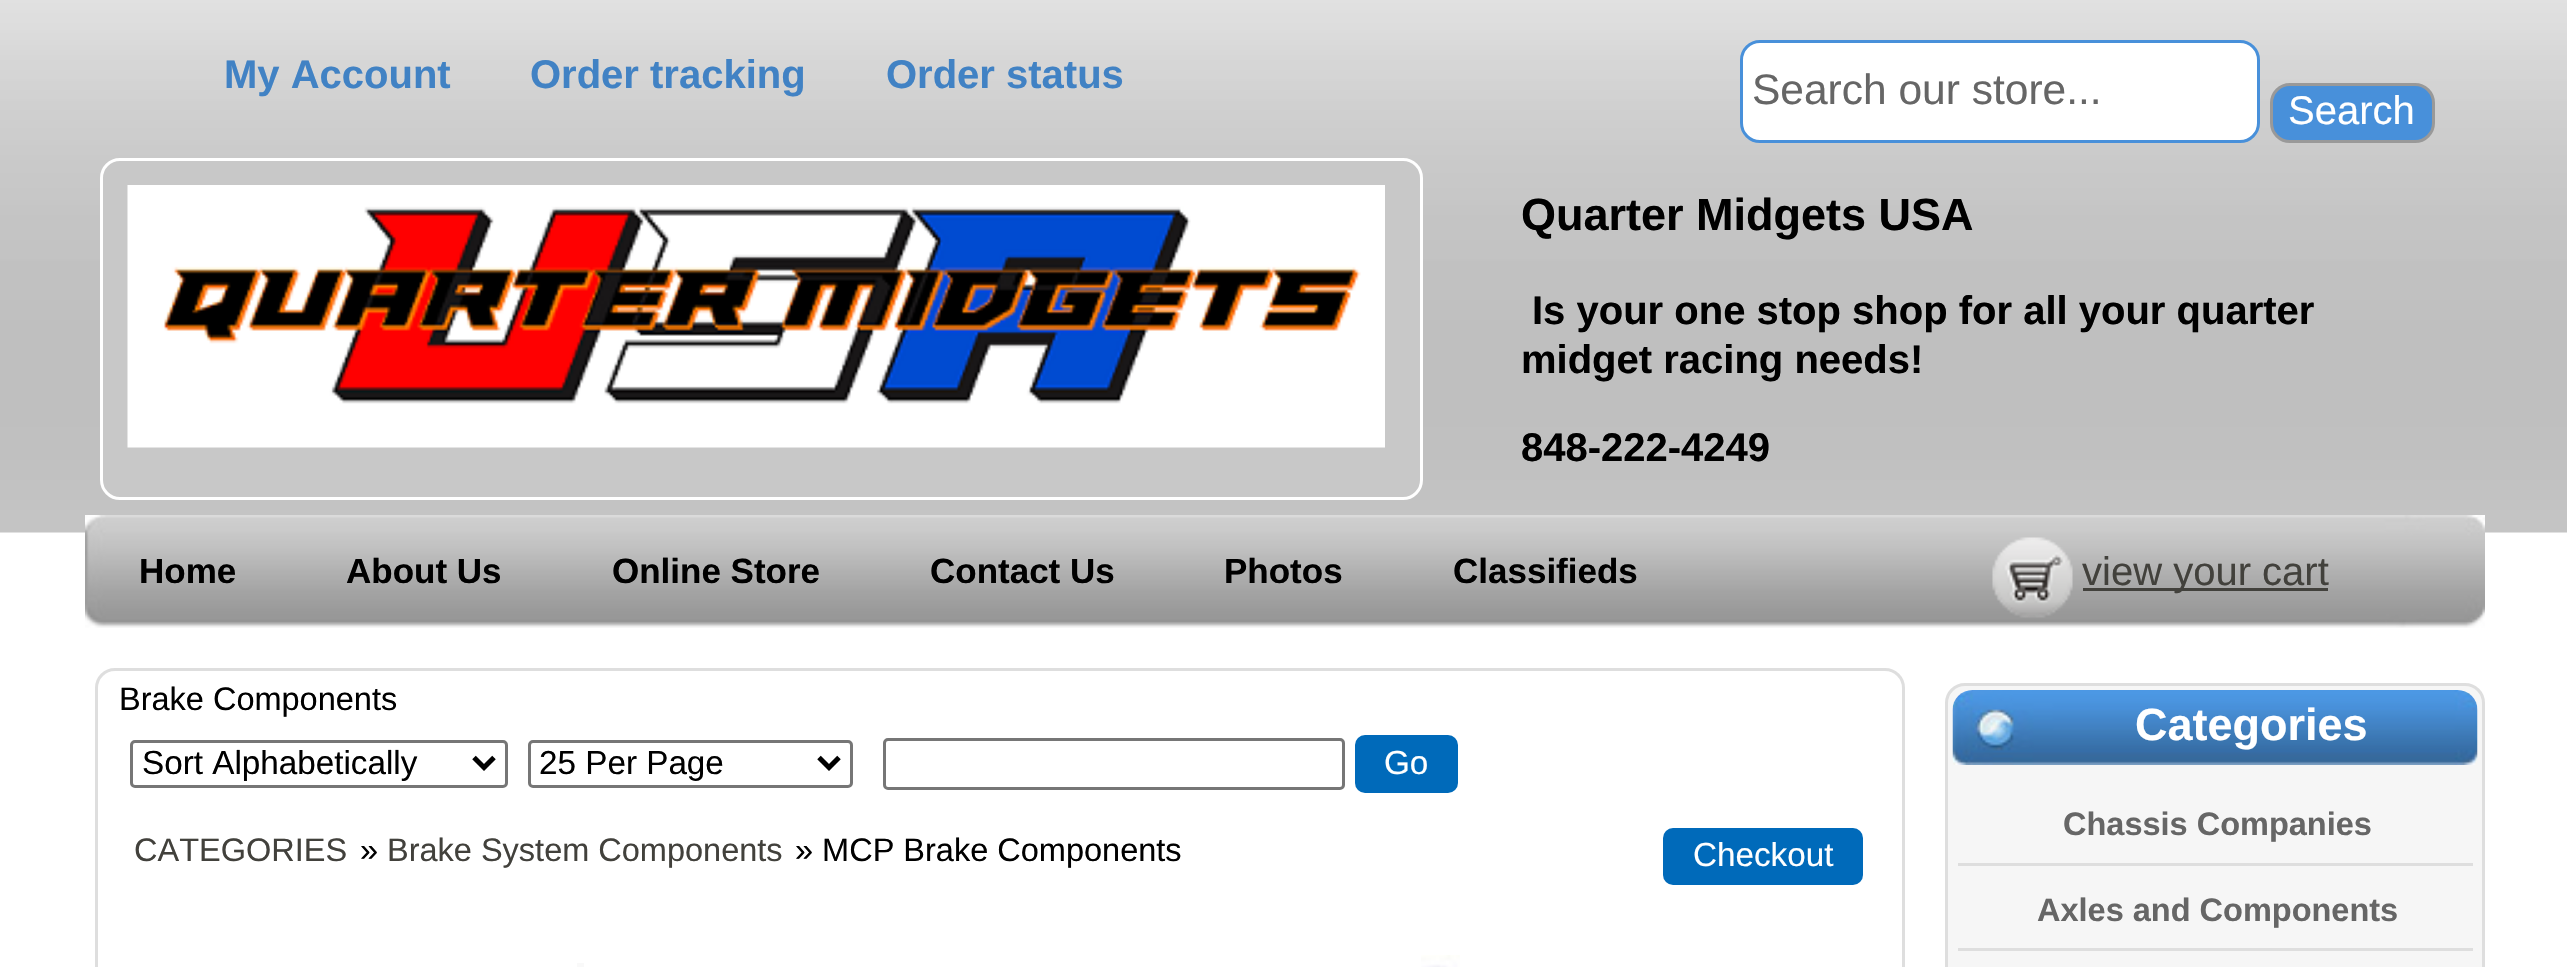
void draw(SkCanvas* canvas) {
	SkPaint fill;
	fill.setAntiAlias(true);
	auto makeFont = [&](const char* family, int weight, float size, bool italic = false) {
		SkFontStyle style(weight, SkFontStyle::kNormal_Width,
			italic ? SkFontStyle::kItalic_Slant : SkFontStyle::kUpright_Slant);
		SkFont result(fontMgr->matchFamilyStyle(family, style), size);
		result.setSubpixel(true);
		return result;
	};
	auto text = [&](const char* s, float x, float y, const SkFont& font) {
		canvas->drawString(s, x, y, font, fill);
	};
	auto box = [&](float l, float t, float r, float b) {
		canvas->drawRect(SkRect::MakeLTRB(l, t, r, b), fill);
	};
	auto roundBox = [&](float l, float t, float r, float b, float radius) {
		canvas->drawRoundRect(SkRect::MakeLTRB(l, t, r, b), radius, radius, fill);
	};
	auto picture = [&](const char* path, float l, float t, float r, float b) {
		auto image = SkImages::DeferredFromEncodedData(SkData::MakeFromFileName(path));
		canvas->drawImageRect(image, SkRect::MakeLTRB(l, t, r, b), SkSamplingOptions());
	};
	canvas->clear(0xFFFFFFFF);
	picture("image0.png", 0, 0, 2567, 533);
	picture("image1.png", 85, 0, 2485, 515);
	fill.setColor(0xFFFFFFFF);
	canvas->drawRoundRect(SkRect::MakeLTRB(1741.5f, 41.5f, 2258.5f, 141.5f), 18.5f, 18.5f, fill);
	fill.setStyle(SkPaint::kStroke_Style);
	fill.setStrokeWidth(3);
	fill.setColor(0xFF4890DA);
	canvas->drawRoundRect(SkRect::MakeLTRB(1741.5f, 41.5f, 2258.5f, 141.5f), 18.5f, 18.5f, fill);
	fill.setStyle(SkPaint::kFill_Style);
	canvas->drawRoundRect(SkRect::MakeLTRB(2271.5f, 84.5f, 2433.5f, 141.5f), 18.5f, 18.5f, fill);
	fill.setStyle(SkPaint::kStroke_Style);
	fill.setColor(0xFF999999);
	canvas->drawRoundRect(SkRect::MakeLTRB(2271.5f, 84.5f, 2433.5f, 141.5f), 18.5f, 18.5f, fill);
	fill.setStyle(SkPaint::kFill_Style);
	fill.setColor(0xFFC8C8C8);
	canvas->drawRoundRect(SkRect::MakeLTRB(101.5f, 159.5f, 1421.5f, 498.5f), 18.5f, 18.5f, fill);
	fill.setStyle(SkPaint::kStroke_Style);
	fill.setColor(0xFFFFFFFF);
	canvas->drawRoundRect(SkRect::MakeLTRB(101.5f, 159.5f, 1421.5f, 498.5f), 18.5f, 18.5f, fill);
	picture("image2.png", 127, 185, 1385, 448);
	picture("image3.png", 85, 515, 2485, 628);
	picture("image4.png", 1992, 537, 2073, 618);
	fill.setStyle(SkPaint::kFill_Style);
	fill.setColor(0xFF42413C);
	box(2083, 588, 2328, 591);
	fill.setStyle(SkPaint::kStroke_Style);
	fill.setColor(0xFFDEDEDE);
	canvas->drawRoundRect(SkRect::MakeLTRB(96.5f, 669.5f, 1903.5f, 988.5f), 18.5f, 18.5f, fill);
	fill.setColor(0xFF767676);
	canvas->drawRoundRect(SkRect::MakeLTRB(131.5f, 741.5f, 506.5f, 786.5f), 3.5f, 3.5f, fill);
	fill.setStrokeWidth(5);
	fill.setColor(0xFF000000);
	canvas->drawPath(SkPathBuilder().moveTo(474, 757.5f).lineTo(484, 767.5f).lineTo(494, 757.5f).detach(), fill);
	fill.setStrokeWidth(3);
	fill.setColor(0xFF767676);
	canvas->drawRoundRect(SkRect::MakeLTRB(529.5f, 741.5f, 851.5f, 786.5f), 3.5f, 3.5f, fill);
	fill.setStrokeWidth(5);
	fill.setColor(0xFF000000);
	canvas->drawPath(SkPathBuilder().moveTo(819, 757.5f).lineTo(829, 767.5f).lineTo(839, 757.5f).detach(), fill);
	fill.setStrokeWidth(3);
	fill.setColor(0xFF767676);
	canvas->drawRoundRect(SkRect::MakeLTRB(884.5f, 739.5f, 1343.5f, 788.5f), 3.5f, 3.5f, fill);
	fill.setStyle(SkPaint::kFill_Style);
	fill.setColor(0xFF006ABA);
	roundBox(1355, 735, 1458, 793, 10);
	roundBox(1663, 828, 1863, 885, 10);
	fill.setColor(0xFFF9F9F9);
	box(577, 963, 584, 967);
	picture("image5.png", 1421, 955, 1460, 967);
	fill.setColor(0xFFF6F6F6);
	canvas->drawRoundRect(SkRect::MakeLTRB(1946.5f, 684.5f, 2483.5f, 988.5f), 18.5f, 18.5f, fill);
	fill.setStyle(SkPaint::kStroke_Style);
	fill.setColor(0xFFDEDEDE);
	canvas->drawRoundRect(SkRect::MakeLTRB(1946.5f, 684.5f, 2483.5f, 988.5f), 18.5f, 18.5f, fill);
	picture("image6.png", 1952, 690, 2478, 765);
	fill.setStyle(SkPaint::kFill_Style);
	box(1958, 863, 2473, 866);
	box(1958, 948, 2473, 951);
	auto font1 = makeFont("Liberation Sans", 700, 40);
	fill.setColor(0xFF4182C4);
	text("My Account", 224, 88, font1);
	text("Order tracking", 530, 88, font1);
	text("Order status", 886, 88, font1);
	auto font2 = makeFont("Liberation Sans", 400, 42.5f);
	fill.setColor(0xFF666666);
	text("Search our store...", 1752, 104, font2);
	auto font3 = makeFont("Liberation Sans", 400, 40);
	fill.setColor(0xFFFFFFFF);
	text("Search", 2288, 124, font3);
	auto font4 = makeFont("Liberation Sans", 700, 45);
	fill.setColor(0xFF000000);
	text("Quarter Midgets USA", 1521, 230, font4);
	text("Is your one stop shop for all your quarter", 1532, 324, font1);
	text("midget racing needs!", 1521, 373, font1);
	text("848-222-4249", 1521, 461, font1);
	auto font5 = makeFont("Liberation Sans", 700, 35);
	text("Home", 139, 583, font5);
	text("About Us", 346, 583, font5);
	text("Online Store", 612, 583, font5);
	text("Contact Us", 930, 583, font5);
	text("Photos", 1224, 583, font5);
	text("Classifieds", 1453, 583, font5);
	fill.setColor(0xFF42413C);
	text("view your cart", 2082, 585, font3);
	auto font6 = makeFont("Liberation Sans", 400, 32.5f);
	fill.setColor(0xFF000000);
	text("Brake Components", 119, 710, font6);
	auto font7 = makeFont("Liberation Sans", 400, 33.25f);
	text("Sort Alphabetically", 142, 774, font7);
	text("25 Per Page", 539, 774, font7);
	fill.setColor(0xFFFFFFFF);
	text("Go", 1384, 774, font7);
	fill.setColor(0xFF42413C);
	text("CATEGORIES", 134, 861, font6);
	fill.setColor(0xFF000000);
	text("»", 360, 861, font6);
	fill.setColor(0xFF42413C);
	text("Brake System Components", 387, 861, font6);
	fill.setColor(0xFF000000);
	text("» MCP Brake Components", 795, 861, font6);
	fill.setColor(0xFFFFFFFF);
	text("Checkout", 1693, 866, font7);
	text("Categories", 2135, 740, font4);
	auto font8 = makeFont("Liberation Sans", 700, 32.5f);
	fill.setColor(0xFF666666);
	text("Chassis Companies", 2063, 835, font8);
	text("Axles and Components", 2037, 921, font8);
}
